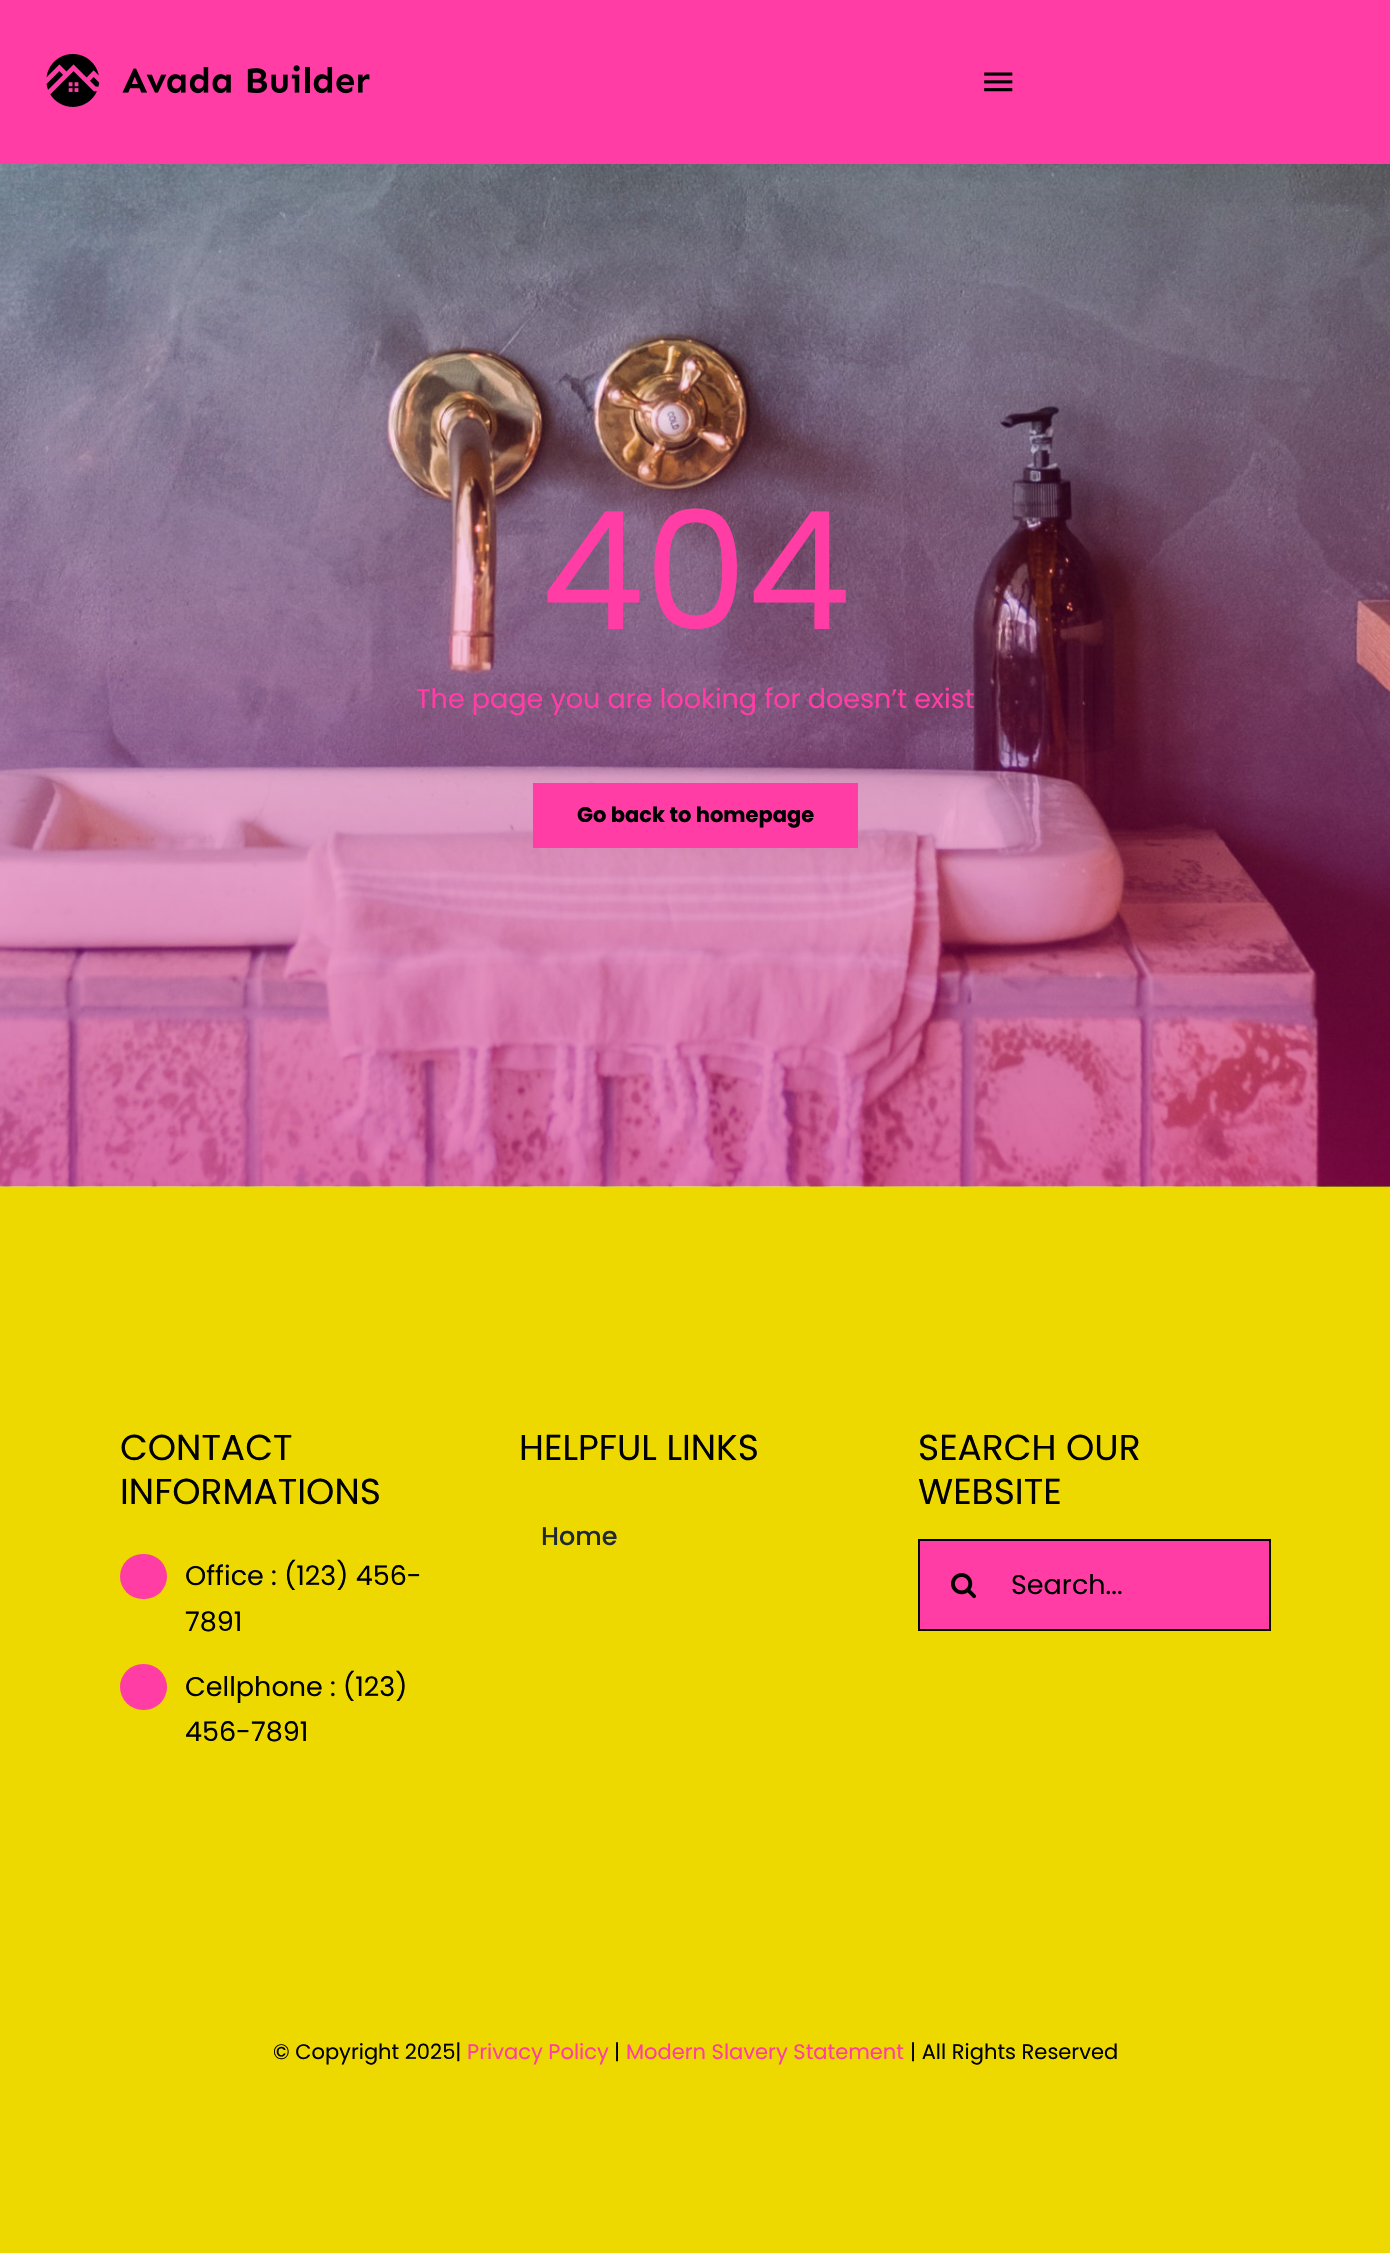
void draw(SkCanvas* canvas) {
	SkPaint fill;
	fill.setAntiAlias(true);
	auto makeFont = [&](const char* family, int weight, float size, bool italic = false) {
		SkFontStyle style(weight, SkFontStyle::kNormal_Width,
			italic ? SkFontStyle::kItalic_Slant : SkFontStyle::kUpright_Slant);
		SkFont result(fontMgr->matchFamilyStyle(family, style), size);
		result.setSubpixel(true);
		return result;
	};
	auto text = [&](const char* s, float x, float y, const SkFont& font) {
		canvas->drawString(s, x, y, font, fill);
	};
	auto box = [&](float l, float t, float r, float b) {
		canvas->drawRect(SkRect::MakeLTRB(l, t, r, b), fill);
	};
	auto roundBox = [&](float l, float t, float r, float b, float radius) {
		canvas->drawRoundRect(SkRect::MakeLTRB(l, t, r, b), radius, radius, fill);
	};
	auto picture = [&](const char* path, float l, float t, float r, float b) {
		auto image = SkImages::DeferredFromEncodedData(SkData::MakeFromFileName(path));
		canvas->drawImageRect(image, SkRect::MakeLTRB(l, t, r, b), SkSamplingOptions());
	};
	canvas->clear(0xFFEDD900);
	fill.setColor(0xFFFF3DA5);
	box(0, 0, 1390, 164);
	picture("image0.png", 46, 54, 370, 107);
	picture("image1.png", 984, 72, 1013, 92);
	picture("image2.png", 0, 164, 1390, 1187);
	box(533, 783, 858, 848);
	roundBox(120, 1554, 167, 1599, 22.5f);
	roundBox(120, 1664, 167, 1710, 23);
	canvas->drawRect(SkRect::MakeLTRB(919, 1540, 1270, 1630), fill);
	fill.setStyle(SkPaint::kStroke_Style);
	fill.setStrokeWidth(2);
	fill.setColor(0xFF000000);
	canvas->drawRect(SkRect::MakeLTRB(919, 1540, 1270, 1630), fill);
	picture("image3.png", 951, 1573, 977, 1599);
	auto font1 = makeFont("Poppins", 400, 164);
	fill.setStyle(SkPaint::kFill_Style);
	fill.setColor(0xFFFF3DA5);
	text("404", 541, 629, font1);
	auto font2 = makeFont("Poppins", 400, 27);
	text("The page you are looking for doesn’t exist", 416, 708, font2);
	auto font3 = makeFont("Poppins", 700, 21);
	fill.setColor(0xFF000000);
	text("Go back to homepage", 577, 822, font3);
	auto font4 = makeFont("Poppins", 400, 36);
	text("CONTACT", 120, 1460, font4);
	text("INFORMATIONS", 120, 1504, font4);
	text("Office : (123) 456-", 185, 1585, font2);
	text("7891", 185, 1631, font2);
	text("Cellphone : (123)", 185, 1696, font2);
	text("456-7891", 185, 1741, font2);
	text("HELPFUL LINKS", 519, 1460, font4);
	auto font5 = makeFont("Poppins", 500, 25.5f);
	fill.setColor(0xFF212934);
	text("Home", 541, 1545, font5);
	fill.setColor(0xFF000000);
	text("SEARCH OUR", 918, 1460, font4);
	text("WEBSITE", 918, 1504, font4);
	text("Search...", 1011, 1594, font2);
	auto font6 = makeFont("Poppins", 400, 21);
	text("© Copyright 2025|", 273, 2059, font6);
	fill.setColor(0xFFFF3DA5);
	text("Privacy Policy", 467, 2059, font6);
	fill.setColor(0xFF000000);
	text("|", 614, 2059, font6);
	fill.setColor(0xFFFF3DA5);
	text("Modern Slavery Statement", 626, 2059, font6);
	fill.setColor(0xFF000000);
	text("| All Rights Reserved", 910, 2059, font6);
}
